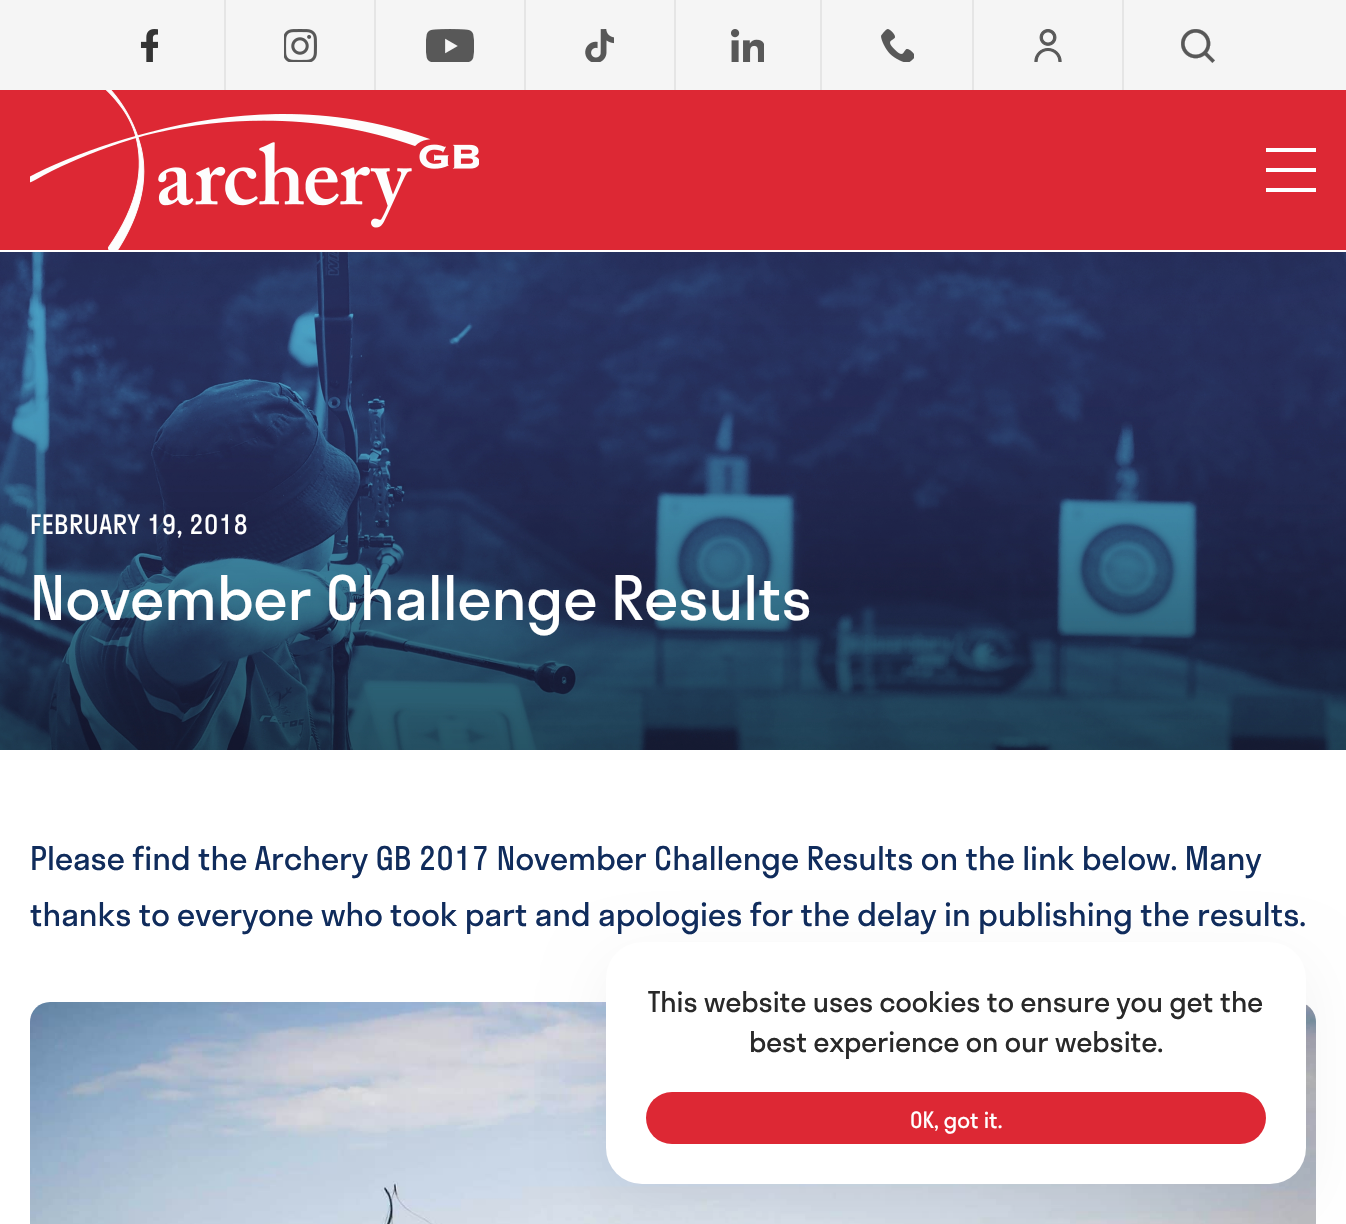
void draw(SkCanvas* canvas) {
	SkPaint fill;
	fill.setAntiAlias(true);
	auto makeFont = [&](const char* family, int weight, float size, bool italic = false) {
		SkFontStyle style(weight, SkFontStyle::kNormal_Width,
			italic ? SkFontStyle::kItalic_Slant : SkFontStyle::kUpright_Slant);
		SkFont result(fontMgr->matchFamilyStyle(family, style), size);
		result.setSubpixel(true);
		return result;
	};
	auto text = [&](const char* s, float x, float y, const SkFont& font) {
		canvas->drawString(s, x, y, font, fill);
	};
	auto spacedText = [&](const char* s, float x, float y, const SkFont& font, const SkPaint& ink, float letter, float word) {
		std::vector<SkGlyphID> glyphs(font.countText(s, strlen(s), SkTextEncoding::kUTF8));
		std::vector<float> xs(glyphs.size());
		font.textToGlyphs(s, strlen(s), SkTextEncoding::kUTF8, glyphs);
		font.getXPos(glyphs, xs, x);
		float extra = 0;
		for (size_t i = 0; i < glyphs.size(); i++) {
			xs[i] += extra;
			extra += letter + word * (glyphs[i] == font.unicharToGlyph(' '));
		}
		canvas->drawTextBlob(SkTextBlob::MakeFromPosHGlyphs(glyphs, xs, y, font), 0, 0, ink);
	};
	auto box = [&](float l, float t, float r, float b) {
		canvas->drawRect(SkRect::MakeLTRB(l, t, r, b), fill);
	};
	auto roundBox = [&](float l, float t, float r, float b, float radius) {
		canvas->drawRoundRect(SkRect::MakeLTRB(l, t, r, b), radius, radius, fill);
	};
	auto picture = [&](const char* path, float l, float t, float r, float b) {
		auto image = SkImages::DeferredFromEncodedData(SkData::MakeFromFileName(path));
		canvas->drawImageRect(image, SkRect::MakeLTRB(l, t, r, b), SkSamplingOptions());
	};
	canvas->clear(0xFFFFFFFF);
	picture("image9.png", 0, 252, 1346, 750);
	fill.setColor(0x0D000000);
	fill.setMaskFilter(SkMaskFilter::MakeBlur(kNormal_SkBlurStyle, 30));
	canvas->drawRect(SkRect::MakeLTRB(0, 20, 1346, 272), fill);
	fill.setMaskFilter(nullptr);
	fill.setColor(0xFFDD2834);
	box(0, 90, 1346, 250);
	fill.setColor(0xFFFFFFFF);
	box(0, 250, 1346, 252);
	fill.setColor(0xFFF5F5F5);
	box(0, 0, 1346, 90);
	picture("image0.png", 140, 29, 158, 62);
	fill.setColor(0xFFE5E5E5);
	box(224, 0, 226, 90);
	picture("image1.png", 284, 29, 317, 62);
	box(374, 0, 376, 90);
	picture("image2.png", 426, 29, 474, 62);
	box(524, 0, 526, 90);
	picture("image3.png", 585, 29, 614, 62);
	box(820, 0, 822, 90);
	box(674, 0, 676, 90);
	picture("image4.png", 731, 29, 764, 62);
	picture("image5.png", 881, 29, 914, 62);
	box(972, 0, 974, 90);
	picture("image6.png", 1034, 29, 1062, 62);
	box(1122, 0, 1124, 90);
	picture("image7.png", 1181, 29, 1215, 63);
	picture("image8.png", 30, 90, 479, 250);
	fill.setColor(0xFFFFFFFF);
	box(1266, 148, 1316, 152);
	box(1266, 168, 1316, 172);
	box(1266, 188, 1316, 192);
	picture("image10.png", 30, 1002, 1316, 1224);
	fill.setColor(0x0D000000);
	fill.setMaskFilter(SkMaskFilter::MakeBlur(kNormal_SkBlurStyle, 30));
	canvas->drawRoundRect(SkRect::MakeLTRB(606, 962, 1306, 1204), 36, 36, fill);
	fill.setMaskFilter(nullptr);
	fill.setColor(0xFFFFFFFF);
	roundBox(606, 942, 1306, 1184, 36);
	fill.setColor(0xFFDD2834);
	roundBox(646, 1092, 1266, 1144, 26);
	auto font1 = makeFont("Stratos", 400, 26);
	fill.setColor(0xFFFFFFFF);
	spacedText("FEBRUARY 19, 2018", 30, 534, font1, fill, 0.5f, 0);
	auto font2 = makeFont("Stratos", 400, 60);
	text("November Challenge Results", 30, 620, font2);
	auto font3 = makeFont("Stratos", 400, 32);
	fill.setColor(0xFF102C5C);
	text("Please find the Archery GB 2017 November Challenge Results on the link below. Many", 30, 870, font3);
	text("thanks to everyone who took part and apologies for the delay in publishing the results.", 30, 926, font3);
	auto font4 = makeFont("Stratos", 400, 28);
	fill.setColor(0xFF292929);
	text("This website uses cookies to ensure you get the", 648, 1012, font4);
	text("best experience on our website.", 749, 1052, font4);
	auto font5 = makeFont("Stratos", 400, 22);
	fill.setColor(0xFFFFFFFF);
	text("OK, got it.", 910, 1128, font5);
}
